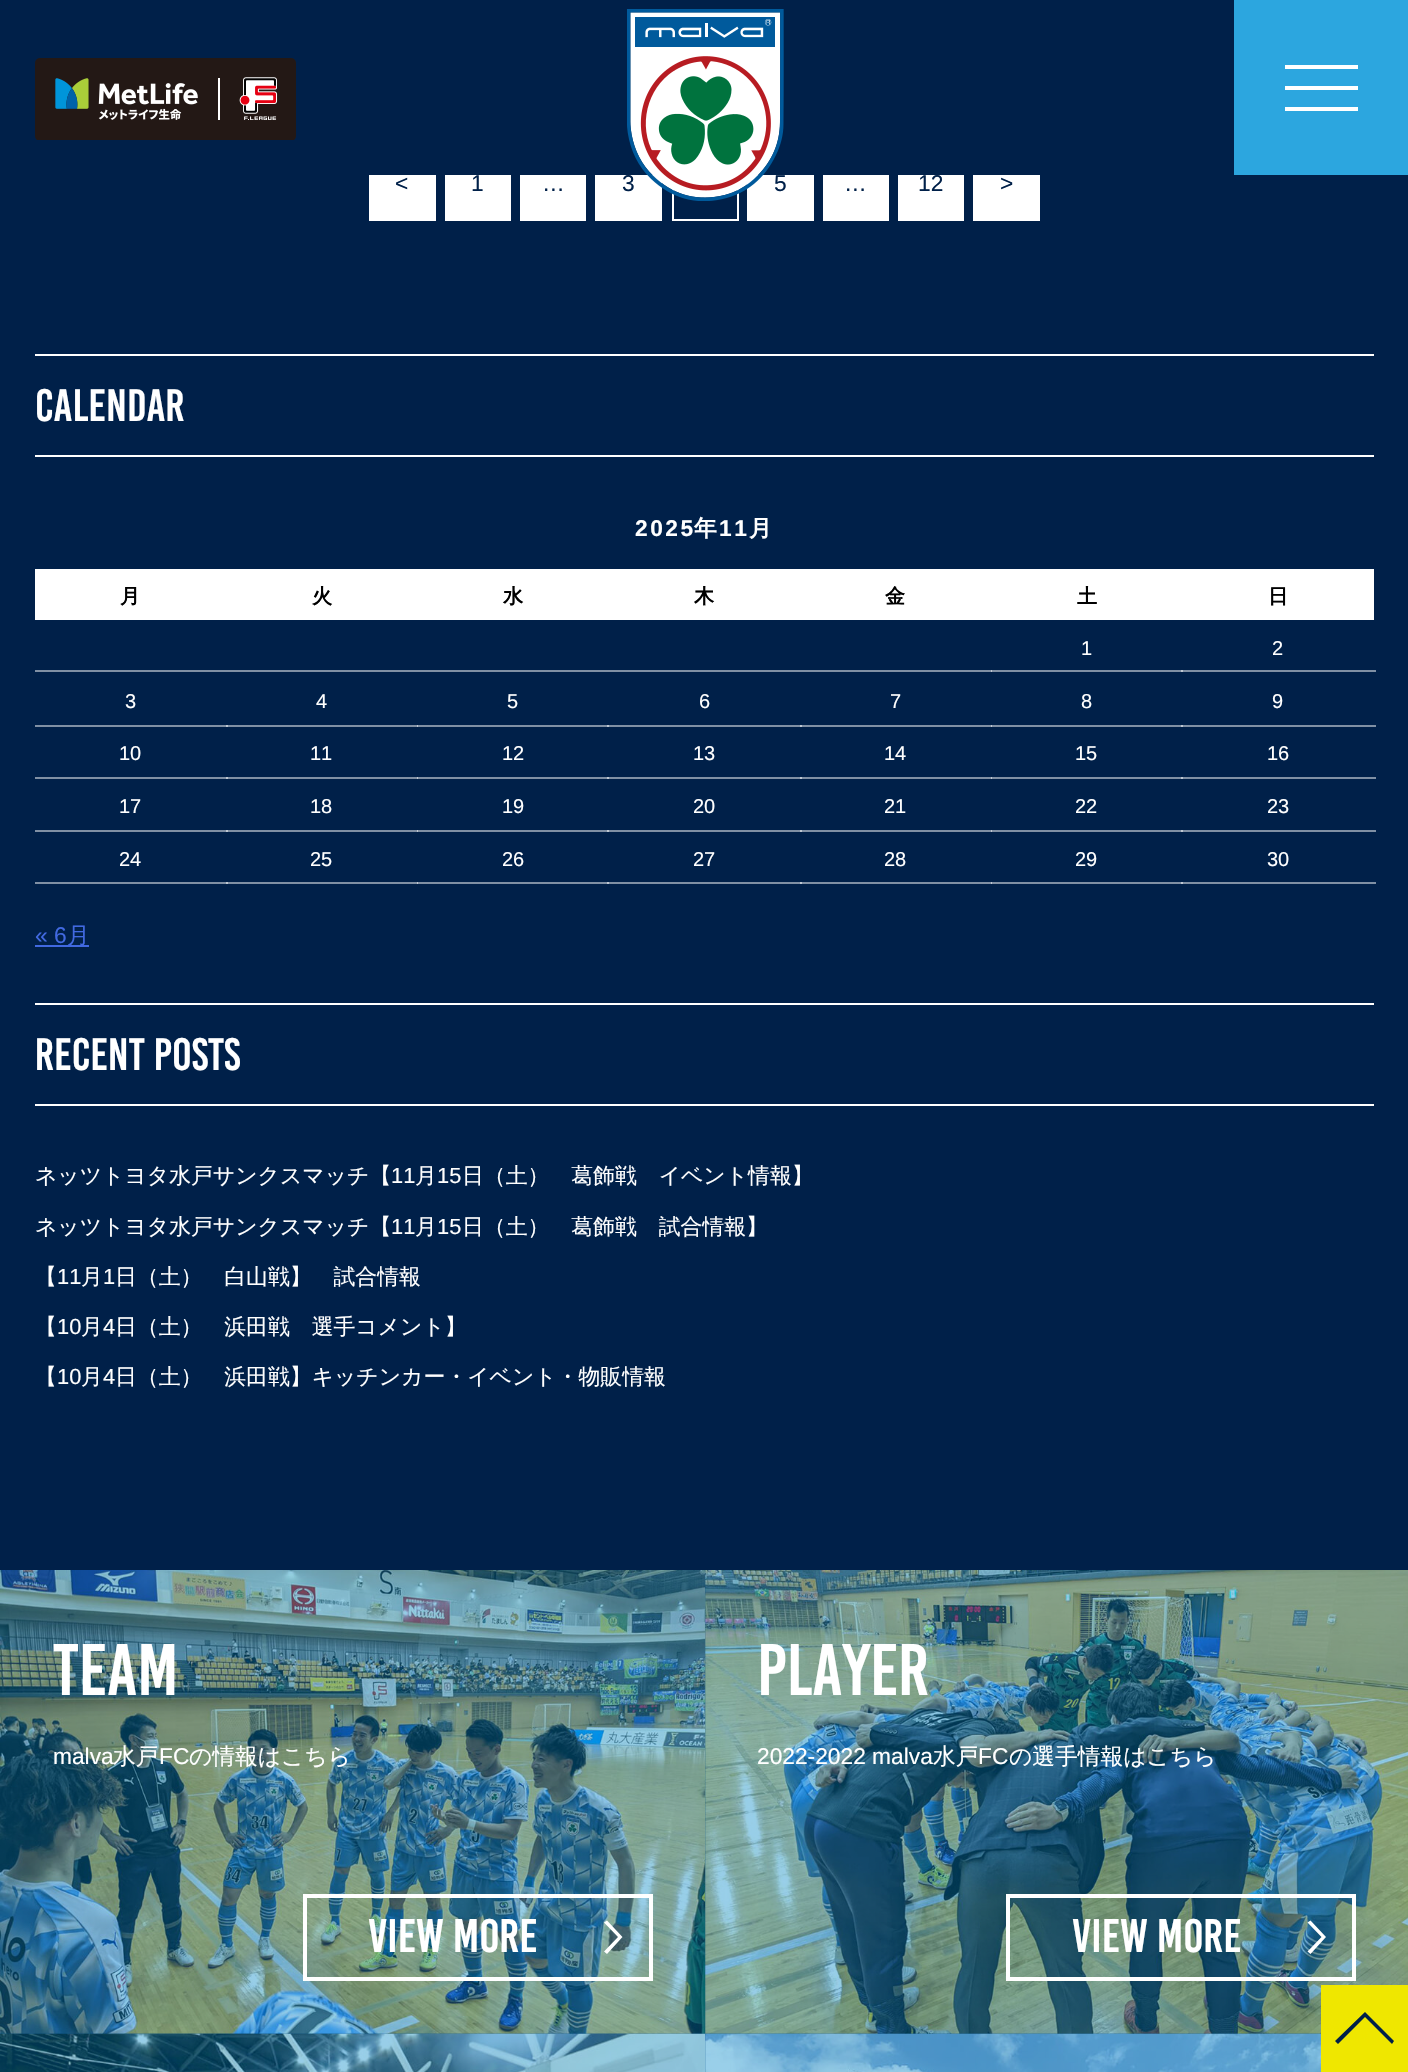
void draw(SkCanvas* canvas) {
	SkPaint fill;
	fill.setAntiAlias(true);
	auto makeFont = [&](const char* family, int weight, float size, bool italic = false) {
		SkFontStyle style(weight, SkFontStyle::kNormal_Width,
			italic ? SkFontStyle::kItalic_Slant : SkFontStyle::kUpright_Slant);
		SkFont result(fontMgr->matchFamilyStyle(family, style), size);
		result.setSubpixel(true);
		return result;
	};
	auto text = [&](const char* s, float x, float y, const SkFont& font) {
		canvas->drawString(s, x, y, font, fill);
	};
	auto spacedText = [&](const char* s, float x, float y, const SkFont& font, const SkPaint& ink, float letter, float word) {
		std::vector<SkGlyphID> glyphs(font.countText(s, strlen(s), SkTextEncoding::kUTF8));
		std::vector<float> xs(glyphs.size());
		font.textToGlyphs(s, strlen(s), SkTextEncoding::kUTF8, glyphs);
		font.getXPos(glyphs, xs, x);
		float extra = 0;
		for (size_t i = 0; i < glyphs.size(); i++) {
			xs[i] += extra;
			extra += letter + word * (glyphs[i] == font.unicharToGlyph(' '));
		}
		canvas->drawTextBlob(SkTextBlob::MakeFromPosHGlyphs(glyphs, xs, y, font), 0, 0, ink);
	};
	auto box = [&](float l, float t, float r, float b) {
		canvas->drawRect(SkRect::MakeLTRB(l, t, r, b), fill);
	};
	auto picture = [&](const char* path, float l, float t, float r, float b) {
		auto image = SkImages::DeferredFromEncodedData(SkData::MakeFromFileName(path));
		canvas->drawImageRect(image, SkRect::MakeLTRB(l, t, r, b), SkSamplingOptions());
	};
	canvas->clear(0xFF002049);
	fill.setStyle(SkPaint::kStroke_Style);
	fill.setStrokeWidth(2);
	fill.setColor(0xFFFFFFFF);
	canvas->drawRect(SkRect::MakeLTRB(673, 148, 738, 220), fill);
	fill.setStyle(SkPaint::kFill_Style);
	fill.setColor(0xFF002049);
	box(672, 147, 739, 175);
	picture("image0.png", 35, 58, 296, 140);
	fill.setColor(0xFF2CA6DF);
	box(1234, 0, 1408, 175);
	fill.setColor(0xFFFFFFFF);
	box(1285, 65, 1358, 69);
	box(1285, 86, 1358, 90);
	box(1285, 107, 1358, 111);
	fill.setColor(0xFF8090A4);
	box(35, 670, 1376, 672);
	fill.setColor(0xFFC0C8D2);
	box(991, 670, 992, 672);
	fill.setColor(0xFF8090A4);
	box(35, 725, 1376, 727);
	fill.setColor(0xFFC0C8D2);
	box(226, 725, 228, 727);
	box(417, 725, 418, 727);
	box(607, 725, 609, 727);
	box(800, 725, 802, 727);
	box(991, 725, 992, 727);
	fill.setColor(0xFF8090A4);
	box(35, 777, 1376, 779);
	fill.setColor(0xFFC0C8D2);
	box(226, 777, 228, 779);
	box(417, 777, 418, 779);
	box(607, 777, 609, 779);
	box(800, 777, 802, 779);
	box(991, 777, 992, 779);
	fill.setColor(0xFF8090A4);
	box(35, 830, 1376, 832);
	fill.setColor(0xFFC0C8D2);
	box(226, 830, 228, 832);
	box(417, 830, 418, 832);
	box(607, 830, 609, 832);
	box(800, 830, 802, 832);
	box(991, 830, 992, 832);
	fill.setColor(0xFF8090A4);
	box(35, 882, 1376, 884);
	fill.setColor(0xFFC0C8D2);
	box(226, 882, 228, 884);
	box(417, 882, 418, 884);
	box(607, 882, 609, 884);
	box(800, 882, 802, 884);
	box(991, 882, 992, 884);
	fill.setColor(0xFFFFFFFF);
	box(369, 175, 436, 221);
	box(445, 175, 511, 221);
	box(520, 175, 586, 221);
	box(595, 175, 662, 221);
	box(747, 175, 814, 221);
	box(823, 175, 889, 221);
	box(898, 175, 964, 221);
	box(973, 175, 1040, 221);
	box(35, 354, 1374, 356);
	box(35, 455, 1374, 457);
	box(35, 569, 1374, 620);
	fill.setColor(0xFFC0C8D2);
	box(1181, 670, 1183, 672);
	box(1181, 725, 1183, 727);
	box(1181, 777, 1183, 779);
	box(1181, 830, 1183, 832);
	box(1181, 882, 1183, 884);
	fill.setColor(0xFF4169E1);
	box(35, 945, 89, 947);
	fill.setColor(0xFFFFFFFF);
	box(35, 1003, 1374, 1005);
	box(35, 1104, 1374, 1106);
	picture("image2.png", 0, 1570, 706, 2034);
	picture("image3.png", 705, 1570, 1408, 2034);
	picture("image4.png", 0, 2033, 706, 2072);
	fill.setColor(0x660086C7);
	box(0, 1570, 705, 2034);
	fill.setStyle(SkPaint::kStroke_Style);
	fill.setStrokeWidth(4);
	fill.setColor(0xFFFFFFFF);
	canvas->drawRect(SkRect::MakeLTRB(305, 1896, 651, 1979), fill);
	fill.setStyle(SkPaint::kFill_Style);
	canvas->drawPath(SkPathBuilder().moveTo(607, 1954).lineTo(604, 1951.5f).lineTo(618, 1937).lineTo(604, 1922.5f).lineTo(607, 1920.5f).lineTo(622.5f, 1937).close().detach(), fill);
	picture("image5.png", 705, 2033, 1321, 2072);
	fill.setColor(0x660086C7);
	box(705, 1570, 1408, 2034);
	fill.setStyle(SkPaint::kStroke_Style);
	fill.setColor(0xFFFFFFFF);
	canvas->drawRect(SkRect::MakeLTRB(1008, 1896, 1354, 1979), fill);
	fill.setStyle(SkPaint::kFill_Style);
	canvas->drawPath(SkPathBuilder().moveTo(1310.5f, 1954).lineTo(1307.5f, 1951.5f).lineTo(1321.5f, 1937).lineTo(1307.5f, 1922.5f).lineTo(1310.5f, 1920.5f).lineTo(1326, 1937).close().detach(), fill);
	fill.setColor(0x660086C7);
	box(705, 2034, 1321, 2072);
	fill.setColor(0xFFEFE700);
	box(1321, 1985, 1408, 2072);
	fill.setColor(0xFF002049);
	canvas->drawPath(SkPathBuilder().moveTo(1392, 2044).lineTo(1365, 2017).lineTo(1338, 2044).lineTo(1335, 2041).lineTo(1365, 2012).lineTo(1394, 2041).close().detach(), fill);
	auto font1 = makeFont("Liberation Sans", 400, 22.75f);
	text("<", 395, 191, font1);
	text("1", 471, 191, font1);
	text("…", 542, 191, font1);
	text("3", 622, 191, font1);
	text("5", 774, 191, font1);
	picture("image1.png", 627, 9, 784, 201);
	text("…", 844, 191, font1);
	text("12", 918, 191, font1);
	text(">", 1000, 191, font1);
	auto font2 = makeFont("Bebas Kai", 400, 45.5f);
	fill.setColor(0xFFFFFFFF);
	text("CALENDAR", 35, 421, font2);
	auto font3 = makeFont("Liberation Sans", 700, 22.75f);
	spacedText("2025", 635, 536, font3, fill, 2.5f, 0);
	auto font4 = makeFont("WenQuanYi Zen Hei", 700, 22.75f);
	spacedText("年", 694, 536, font4, fill, 2.5f, 0);
	spacedText("11", 719, 536, font3, fill, 2.5f, 0);
	spacedText("月", 749, 536, font4, fill, 2.5f, 0);
	auto font5 = makeFont("WenQuanYi Zen Hei", 700, 20);
	fill.setColor(0xFF000000);
	text("月", 120, 603, font5);
	text("火", 312, 603, font5);
	text("水", 503, 603, font5);
	text("木", 694, 603, font5);
	text("金", 885, 603, font5);
	text("土", 1077, 603, font5);
	text("日", 1268, 603, font5);
	auto font6 = makeFont("Liberation Sans", 400, 20);
	fill.setColor(0xFFFFFFFF);
	text("1", 1081, 655, font6);
	text("2", 1272, 655, font6);
	text("3", 125, 708, font6);
	text("4", 316, 708, font6);
	text("5", 507, 708, font6);
	text("6", 699, 708, font6);
	text("7", 890, 708, font6);
	text("8", 1081, 708, font6);
	text("9", 1272, 708, font6);
	text("10", 119, 760, font6);
	text("11", 310, 760, font6);
	text("12", 502, 760, font6);
	text("13", 693, 760, font6);
	text("14", 884, 760, font6);
	text("15", 1075, 760, font6);
	text("16", 1267, 760, font6);
	text("17", 119, 813, font6);
	text("18", 310, 813, font6);
	text("19", 502, 813, font6);
	text("20", 693, 813, font6);
	text("21", 884, 813, font6);
	text("22", 1075, 813, font6);
	text("23", 1267, 813, font6);
	text("24", 119, 866, font6);
	text("25", 310, 866, font6);
	text("26", 502, 866, font6);
	text("27", 693, 866, font6);
	text("28", 884, 866, font6);
	text("29", 1075, 866, font6);
	text("30", 1267, 866, font6);
	fill.setColor(0xFF4169E1);
	text("« 6", 35, 943, font1);
	auto font7 = makeFont("WenQuanYi Zen Hei", 500, 22.75f);
	text("月", 67, 943, font7);
	fill.setColor(0xFFFFFFFF);
	text("RECENT POSTS", 35, 1070, font2);
	auto font8 = makeFont("WenQuanYi Zen Hei", 500, 21.85f);
	text("ネッツトヨタ水戸サンクスマッチ【", 35, 1183, font8);
	auto font9 = makeFont("Liberation Sans", 400, 21.85f);
	text("11", 391, 1183, font9);
	text("月", 415, 1183, font8);
	text("15", 437, 1183, font9);
	text("日（土）　葛飾戦　イベント情報】", 462, 1183, font8);
	text("ネッツトヨタ水戸サンクスマッチ【", 35, 1234, font8);
	text("11", 391, 1234, font9);
	text("月", 415, 1234, font8);
	text("15", 437, 1234, font9);
	text("日（土）　葛飾戦　試合情報】", 462, 1234, font8);
	text("【", 35, 1284, font8);
	text("11", 57, 1284, font9);
	text("月", 81, 1284, font8);
	text("1", 103, 1284, font9);
	text("日（土）　白山戦】　試合情報", 115, 1284, font8);
	text("【", 35, 1334, font8);
	text("10", 57, 1334, font9);
	text("月", 81, 1334, font8);
	text("4", 103, 1334, font9);
	text("日（土）　浜田戦　選手コメント】", 115, 1334, font8);
	text("【", 35, 1384, font8);
	text("10", 57, 1384, font9);
	text("月", 81, 1384, font8);
	text("4", 103, 1384, font9);
	text("日（土）　浜田戦】キッチンカー・イベント・物販情報", 115, 1384, font8);
	auto font10 = makeFont("Bebas Kai", 400, 73);
	text("TEAM", 53, 1695, font10);
	text("malva", 53, 1764, font1);
	text("水戸", 113, 1764, font7);
	text("FC", 159, 1764, font1);
	text("の情報はこちら", 189, 1764, font7);
	auto font11 = makeFont("Bebas Kai", 400, 47);
	text("VIEW MORE", 368, 1952, font11);
	text("PLAYER", 757, 1695, font10);
	text("2022-2022 malva", 757, 1764, font1);
	text("水戸", 933, 1764, font7);
	text("FC", 978, 1764, font1);
	text("の選手情報はこちら", 1009, 1764, font7);
	text("VIEW MORE", 1072, 1952, font11);
}
